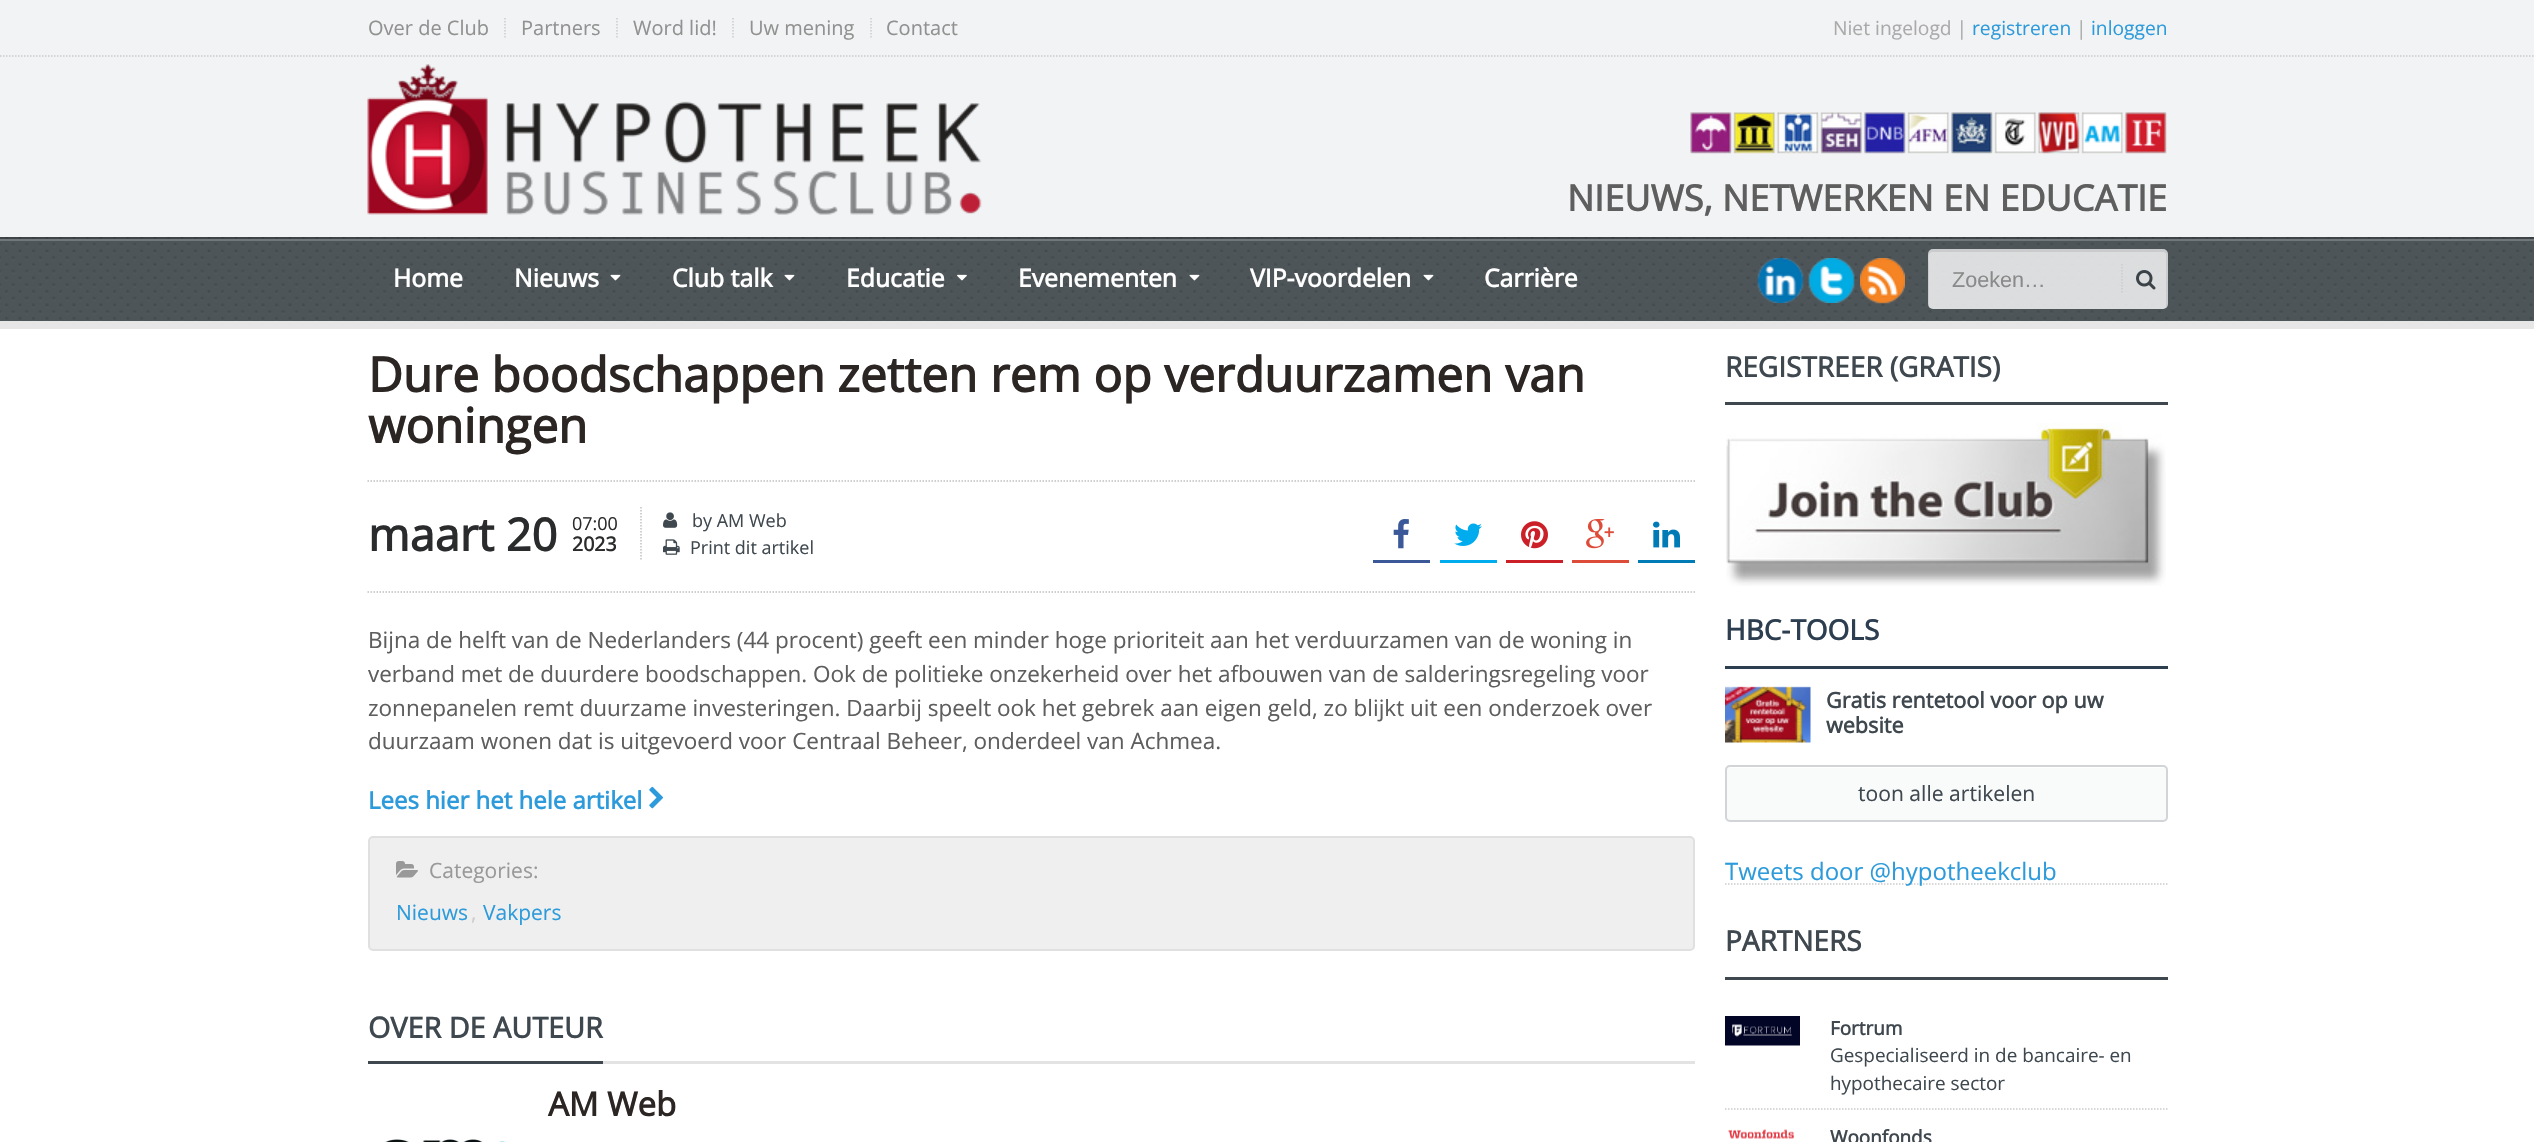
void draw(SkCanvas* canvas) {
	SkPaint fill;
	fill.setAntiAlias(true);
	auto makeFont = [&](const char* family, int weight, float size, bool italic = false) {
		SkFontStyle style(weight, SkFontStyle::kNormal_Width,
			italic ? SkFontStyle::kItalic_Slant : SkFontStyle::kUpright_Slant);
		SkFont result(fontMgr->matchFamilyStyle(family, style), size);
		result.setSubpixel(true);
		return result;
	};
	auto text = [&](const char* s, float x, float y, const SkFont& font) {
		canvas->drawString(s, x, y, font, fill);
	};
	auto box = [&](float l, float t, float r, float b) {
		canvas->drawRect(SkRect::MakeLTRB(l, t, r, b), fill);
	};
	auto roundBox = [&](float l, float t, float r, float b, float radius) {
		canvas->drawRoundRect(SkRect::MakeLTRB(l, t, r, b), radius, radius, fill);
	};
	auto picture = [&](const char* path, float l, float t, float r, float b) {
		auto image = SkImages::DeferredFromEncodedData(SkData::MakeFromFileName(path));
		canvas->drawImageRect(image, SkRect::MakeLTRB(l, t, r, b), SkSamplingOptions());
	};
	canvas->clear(0xFFFFFFFF);
	fill.setColor(0xFFF2F3F4);
	box(0, 0, 2534, 237);
	fill.setStyle(SkPaint::kStroke_Style);
	fill.setStrokeWidth(1.5f);
	fill.setColor(0xFFCCCCCC);
	fill.setPathEffect(SkDashPathEffect::Make({{1.5f, 1.5f}}, 0));
	canvas->drawPath(SkPathBuilder().moveTo(0, 56).lineTo(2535, 56).detach(), fill);
	fill.setPathEffect(nullptr);
	fill.setPathEffect(SkDashPathEffect::Make({{1.5f, 1.5f}}, 0));
	canvas->drawPath(SkPathBuilder().moveTo(505, 18).lineTo(505, 37.5f).detach(), fill);
	fill.setPathEffect(nullptr);
	fill.setPathEffect(SkDashPathEffect::Make({{1.5f, 1.5f}}, 0));
	canvas->drawPath(SkPathBuilder().moveTo(617, 18).lineTo(617, 37.5f).detach(), fill);
	fill.setPathEffect(nullptr);
	fill.setPathEffect(SkDashPathEffect::Make({{1.5f, 1.5f}}, 0));
	canvas->drawPath(SkPathBuilder().moveTo(733, 18).lineTo(733, 37.5f).detach(), fill);
	fill.setPathEffect(nullptr);
	fill.setPathEffect(SkDashPathEffect::Make({{1.5f, 1.5f}}, 0));
	canvas->drawPath(SkPathBuilder().moveTo(871, 18).lineTo(871, 37.5f).detach(), fill);
	fill.setPathEffect(nullptr);
	picture("image0.png", 367, 64, 982, 215);
	picture("image1.png", 1690, 112, 2167, 154);
	fill.setStyle(SkPaint::kFill_Style);
	fill.setColor(0xFFE6E6E6);
	box(0, 321, 2534, 329);
	fill.setColor(0xFF3F484F);
	box(0, 237, 2534, 321);
	picture("image2.png", 0, 237, 2534, 321);
	fill.setColor(0xFF72777B);
	box(0, 239, 2534, 241);
	fill.setColor(0x33000000);
	box(0, 237, 2534, 239);
	picture("image3.png", 610, 274, 621, 281);
	picture("image4.png", 784, 274, 795, 281);
	picture("image5.png", 957, 274, 967, 281);
	picture("image4.png", 1189, 274, 1200, 281);
	picture("image6.png", 1423, 274, 1434, 281);
	picture("image7.png", 1757, 258, 1804, 303);
	picture("image8.png", 1808, 258, 1855, 303);
	picture("image9.png", 1860, 258, 1905, 304);
	fill.setColor(0xCCFFFFFF);
	roundBox(1928, 249, 2168, 309, 5);
	fill.setColor(0x14000000);
	canvas->drawPath(SkPathBuilder().moveTo(1932, 252).lineTo(2163, 252).cubicTo(2165, 252, 2166, 253, 2166, 255).lineTo(2166, 306).cubicTo(2166, 308, 2165, 309, 2164, 309).cubicTo(2166, 308, 2168, 306, 2168, 304).lineTo(2168, 254).cubicTo(2168, 251, 2166, 249, 2163, 249).lineTo(1933, 249).cubicTo(1930, 249, 1928, 251, 1928, 254).lineTo(1928, 304).cubicTo(1928, 305, 1928, 306, 1929, 307).lineTo(1929, 264).cubicTo(1929, 262, 1927, 252, 1932, 252).close().detach(), fill);
	fill.setStyle(SkPaint::kStroke_Style);
	fill.setColor(0xFFCCCCCC);
	fill.setPathEffect(SkDashPathEffect::Make({{1.5f, 1.5f}}, 0));
	canvas->drawPath(SkPathBuilder().moveTo(2122, 264).lineTo(2122, 294).detach(), fill);
	fill.setPathEffect(nullptr);
	picture("image10.png", 2136, 270, 2156, 290);
	fill.setColor(0xFFBFBFBF);
	fill.setPathEffect(SkDashPathEffect::Make({{1.5f, 1.5f}}, 0));
	canvas->drawPath(SkPathBuilder().moveTo(367.5f, 592).lineTo(1695, 592).detach(), fill);
	fill.setPathEffect(nullptr);
	fill.setPathEffect(SkDashPathEffect::Make({{1.5f, 1.5f}}, 0));
	canvas->drawPath(SkPathBuilder().moveTo(367.5f, 481).lineTo(1695, 481).detach(), fill);
	fill.setPathEffect(nullptr);
	fill.setPathEffect(SkDashPathEffect::Make({{1.5f, 1.5f}}, 0));
	canvas->drawPath(SkPathBuilder().moveTo(641, 507).lineTo(641, 561).detach(), fill);
	fill.setPathEffect(nullptr);
	picture("image11.png", 663, 512, 678, 528);
	picture("image12.png", 663, 539, 680, 555);
	fill.setStyle(SkPaint::kFill_Style);
	fill.setColor(0xFF3B5998);
	box(1373, 560, 1430, 563);
	picture("image13.png", 1393, 519, 1409, 549);
	fill.setColor(0xFF00ACED);
	box(1440, 560, 1497, 563);
	picture("image14.png", 1454, 523, 1482, 546);
	fill.setColor(0xFFCB2027);
	box(1506, 560, 1563, 563);
	picture("image15.png", 1521, 521, 1548, 549);
	fill.setColor(0xFFDD4B39);
	box(1572, 560, 1629, 563);
	picture("image16.png", 1586, 519, 1614, 549);
	fill.setColor(0xFF007BB6);
	box(1638, 560, 1695, 563);
	picture("image17.png", 1653, 521, 1680, 548);
	picture("image18.png", 649, 786, 663, 809);
	fill.setColor(0xFFEFEFEF);
	canvas->drawRoundRect(SkRect::MakeLTRB(369, 837, 1694, 950), 4, 4, fill);
	fill.setStyle(SkPaint::kStroke_Style);
	fill.setStrokeWidth(2);
	fill.setColor(0xFFE0E0E0);
	canvas->drawRoundRect(SkRect::MakeLTRB(369, 837, 1694, 950), 4, 4, fill);
	picture("image19.png", 396, 861, 418, 878);
	fill.setStyle(SkPaint::kFill_Style);
	fill.setColor(0xFFE3E3E3);
	box(603, 1061, 1695, 1064);
	fill.setColor(0xFF3F484F);
	box(368, 1061, 603, 1064);
	picture("image20.png", 385, 1139, 506, 1142);
	box(1725, 402, 2168, 405);
	picture("image21.png", 1726, 423, 2166, 586);
	fill.setColor(0xFF2C3E50);
	box(1725, 666, 2168, 669);
	picture("image22.png", 1725, 686, 1811, 743);
	fill.setColor(0xFFF9FAFA);
	roundBox(1725, 765, 2168, 822, 5);
	fill.setColor(0xFFFFFFFF);
	canvas->drawPath(SkPathBuilder().moveTo(1730, 768).lineTo(2163, 768).cubicTo(2165, 768, 2166, 769, 2166, 771).lineTo(2166, 770).cubicTo(2166, 768, 2165, 767, 2163, 767).lineTo(1730, 767).cubicTo(1729, 767, 1728, 768, 1727, 769).close().detach(), fill);
	fill.setStyle(SkPaint::kStroke_Style);
	fill.setColor(0xFFD2D5D8);
	canvas->drawRoundRect(SkRect::MakeLTRB(1726, 766, 2167, 821), 4, 4, fill);
	fill.setStrokeWidth(1.5f);
	fill.setColor(0xFFCCCCCC);
	fill.setPathEffect(SkDashPathEffect::Make({{1.5f, 1.5f}}, 0));
	canvas->drawPath(SkPathBuilder().moveTo(1725, 884).lineTo(2167.5f, 884).detach(), fill);
	fill.setPathEffect(nullptr);
	fill.setStyle(SkPaint::kFill_Style);
	fill.setColor(0xFF3F484F);
	box(1725, 977, 2168, 980);
	fill.setStyle(SkPaint::kStroke_Style);
	fill.setColor(0xFFCCCCCC);
	fill.setPathEffect(SkDashPathEffect::Make({{1.5f, 1.5f}}, 0));
	canvas->drawPath(SkPathBuilder().moveTo(1725, 1109).lineTo(2167.5f, 1109).detach(), fill);
	fill.setPathEffect(nullptr);
	picture("image23.png", 1725, 1016, 1800, 1046);
	picture("image24.png", 1728, 1129, 1794, 1139);
	auto font1 = makeFont("Open Sans", 400, 20);
	fill.setStyle(SkPaint::kFill_Style);
	fill.setColor(0xFF919191);
	text("Over de Club", 368, 35, font1);
	text("Partners", 521, 35, font1);
	text("Word lid!", 633, 35, font1);
	text("Uw mening", 749, 35, font1);
	text("Contact", 886, 35, font1);
	auto font2 = makeFont("Open Sans", 400, 19.25f);
	fill.setColor(0xFFAAAAAA);
	text("Niet ingelogd |", 1833, 35, font2);
	fill.setColor(0xFF2D9BDB);
	text("registreren", 1972, 35, font2);
	fill.setColor(0xFFAAAAAA);
	text("|", 2076, 35, font2);
	fill.setColor(0xFF2D9BDB);
	text("inloggen", 2091, 35, font2);
	auto font3 = makeFont("Open Sans", 700, 36);
	fill.setColor(0xFF5E5E5E);
	text("NIEUWS, NETWERKEN EN EDUCATIE", 1567, 211, font3);
	auto font4 = makeFont("Open Sans", 700, 24.75f);
	fill.setColor(0xFFFFFFFF);
	text("Home", 393, 287, font4);
	text("Nieuws", 514, 287, font4);
	text("Club talk", 672, 287, font4);
	text("Educatie", 846, 287, font4);
	text("Evenementen", 1018, 287, font4);
	text("VIP-voordelen", 1250, 287, font4);
	text("Carrière", 1484, 287, font4);
	auto font5 = makeFont("Liberation Sans", 400, 21.6f);
	fill.setColor(0xFF8A8A8A);
	text("Zoeken…", 1952, 287, font5);
	auto font6 = makeFont("Open Sans", 700, 48);
	fill.setColor(0xFF2B2624);
	text("Dure boodschappen zetten rem op verduurzamen van", 368, 392, font6);
	text("woningen", 368, 443, font6);
	auto font7 = makeFont("Open Sans", 700, 45);
	fill.setColor(0xFF2A2B2C);
	text("maart 20", 368, 551, font7);
	auto font8 = makeFont("Open Sans", 400, 18);
	text("07:00", 572, 530, font8);
	auto font9 = makeFont("Open Sans", 700, 19.5f);
	text("2023", 572, 551, font9);
	fill.setColor(0xFF3F484F);
	text("by AM Web", 692, 527, font8);
	text("Print dit artikel", 690, 554, font8);
	auto font10 = makeFont("Open Sans", 400, 22.5f);
	fill.setColor(0xFF5E5E5E);
	text("Bijna de helft van de Nederlanders (44 procent) geeft een minder hoge prioriteit aan het verduurzamen van de woning in", 368, 648, font10);
	text("verband met de duurdere boodschappen. Ook de politieke onzekerheid over het afbouwen van de salderingsregeling voor", 368, 682, font10);
	text("zonnepanelen remt duurzame investeringen. Daarbij speelt ook het gebrek aan eigen geld, zo blijkt uit een onderzoek over", 368, 716, font10);
	text("duurzaam wonen dat is uitgevoerd voor Centraal Beheer, onderdeel van Achmea.", 368, 749, font10);
	auto font11 = makeFont("Open Sans", 700, 24);
	fill.setColor(0xFF2D9BDB);
	text("Lees hier het hele artikel", 368, 809, font11);
	auto font12 = makeFont("Open Sans", 400, 21);
	fill.setColor(0xFF999999);
	text("Categories:", 429, 878, font12);
	fill.setColor(0xFF2D9BDB);
	text("Nieuws", 396, 920, font12);
	fill.setColor(0xFFCCCCCC);
	text(",", 471, 920, font12);
	fill.setColor(0xFF2D9BDB);
	text("Vakpers", 483, 920, font12);
	auto font13 = makeFont("Open Sans", 700, 28.75f);
	fill.setColor(0xFF3F484F);
	text("OVER DE AUTEUR", 368, 1038, font13);
	auto font14 = makeFont("Open Sans", 700, 33);
	fill.setColor(0xFF2B2624);
	text("AM Web", 548, 1116, font14);
	auto font15 = makeFont("Open Sans", 700, 28);
	fill.setColor(0xFF3F484F);
	text("REGISTREER (GRATIS)", 1725, 377, font15);
	fill.setColor(0xFF2C3E50);
	text("HBC-TOOLS", 1725, 640, font15);
	auto font16 = makeFont("Open Sans", 700, 21.6f);
	fill.setColor(0xFF3F484F);
	text("Gratis rentetool voor op uw", 1826, 708, font16);
	text("website", 1826, 733, font16);
	auto font17 = makeFont("Open Sans", 400, 21.1f);
	text("toon alle artikelen", 1858, 801, font17);
	auto font18 = makeFont("Open Sans", 400, 24);
	fill.setColor(0xFF2D9BDB);
	text("Tweets door @hypotheekclub", 1725, 880, font18);
	fill.setColor(0xFF3F484F);
	text("PARTNERS", 1725, 951, font15);
	auto font19 = makeFont("Open Sans", 700, 18.9f);
	text("Fortrum", 1830, 1035, font19);
	auto font20 = makeFont("Open Sans", 400, 18.9f);
	text("Gespecialiseerd in de bancaire- en", 1830, 1062, font20);
	text("hypothecaire sector", 1830, 1090, font20);
	text("Woonfonds", 1830, 1144, font19);
}
